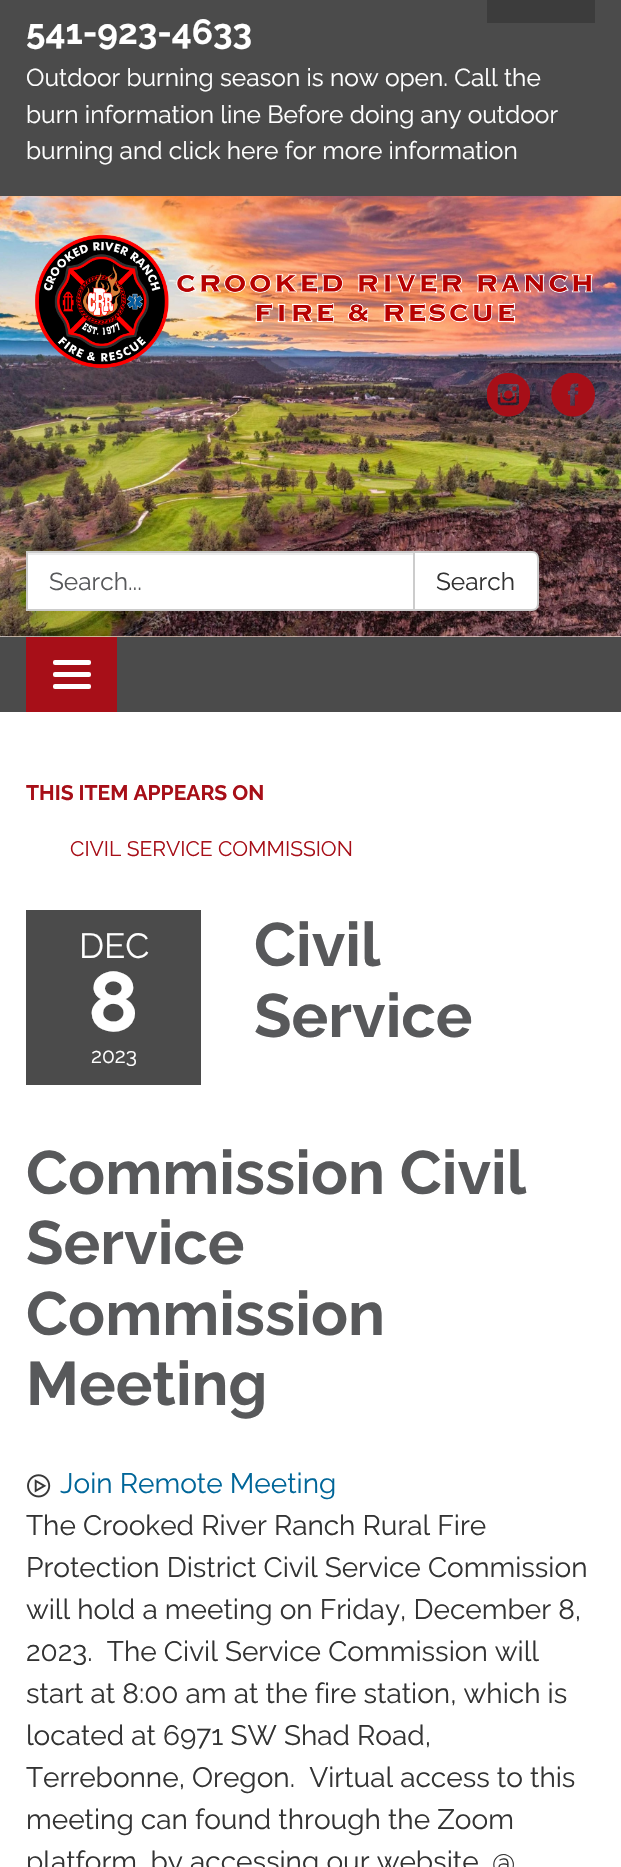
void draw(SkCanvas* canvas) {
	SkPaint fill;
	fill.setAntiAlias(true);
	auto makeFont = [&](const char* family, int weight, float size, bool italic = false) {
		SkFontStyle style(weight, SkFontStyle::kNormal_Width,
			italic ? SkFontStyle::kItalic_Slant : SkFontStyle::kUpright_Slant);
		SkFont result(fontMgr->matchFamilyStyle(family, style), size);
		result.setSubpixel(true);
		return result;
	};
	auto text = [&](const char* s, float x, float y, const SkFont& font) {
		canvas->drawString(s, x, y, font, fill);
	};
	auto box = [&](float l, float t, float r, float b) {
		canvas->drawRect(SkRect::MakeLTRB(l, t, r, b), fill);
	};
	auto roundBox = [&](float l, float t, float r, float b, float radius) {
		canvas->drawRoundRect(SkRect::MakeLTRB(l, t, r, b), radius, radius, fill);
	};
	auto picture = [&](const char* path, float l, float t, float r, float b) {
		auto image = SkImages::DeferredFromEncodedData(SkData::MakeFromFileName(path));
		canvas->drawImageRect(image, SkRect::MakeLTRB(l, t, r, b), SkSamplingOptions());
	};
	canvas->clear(0xFF4B4B4B);
	fill.setColor(0xFF3C3C3C);
	box(487, 0, 595, 23);
	fill.setColor(0xFFFFFFFF);
	box(0, 636, 621, 637);
	picture("image0.png", 0, 196, 621, 637);
	picture("image1.png", 35, 234, 593, 369);
	picture("image2.png", 487, 373, 530, 417);
	picture("image3.png", 551, 373, 595, 417);
	box(28, 555, 413, 609);
	fill.setColor(0xFFECECEC);
	box(28, 553, 413, 555);
	fill.setStyle(SkPaint::kStroke_Style);
	fill.setStrokeWidth(2);
	fill.setColor(0xFFCCCCCC);
	canvas->drawRect(SkRect::MakeLTRB(27, 552, 414, 610), fill);
	fill.setStyle(SkPaint::kFill_Style);
	fill.setColor(0xFFFFFFFF);
	canvas->drawPath(SkPathBuilder().moveTo(414, 552).lineTo(532, 552).cubicTo(535.5f, 552, 538, 554.5f, 538, 558).lineTo(538, 604).cubicTo(538, 607.5f, 535.5f, 610, 532, 610).lineTo(414, 610).close().detach(), fill);
	fill.setStyle(SkPaint::kStroke_Style);
	fill.setColor(0xFFCCCCCC);
	canvas->drawPath(SkPathBuilder().moveTo(414, 552).lineTo(532, 552).cubicTo(535.5f, 552, 538, 554.5f, 538, 558).lineTo(538, 604).cubicTo(538, 607.5f, 535.5f, 610, 532, 610).lineTo(414, 610).close().detach(), fill);
	fill.setStyle(SkPaint::kFill_Style);
	fill.setColor(0xFFA70F18);
	box(26, 637, 117, 712);
	fill.setColor(0xFFFFFFFF);
	roundBox(53, 660, 91, 665, 2);
	roundBox(53, 672, 91, 677, 2);
	roundBox(53, 684, 91, 689, 2);
	box(0, 712, 621, 1867);
	fill.setColor(0xFF4B4B4B);
	box(26, 910, 201, 1085);
	picture("image4.png", 27, 1474, 51, 1498);
	auto font1 = makeFont("Raleway", 700, 35);
	fill.setColor(0xFFFFFFFF);
	text("541-923-4633", 26, 44, font1);
	auto font2 = makeFont("Raleway", 400, 24.5f);
	text("Outdoor burning season is now open. Call the", 26, 86, font2);
	text("burn information line Before doing any outdoor", 26, 123, font2);
	text("burning and click here for more information", 26, 159, font2);
	fill.setColor(0xFF58595B);
	text("Search...", 49, 590, font2);
	fill.setColor(0xFF333333);
	text("Search", 436, 590, font2);
	auto font3 = makeFont("Raleway", 700, 21);
	fill.setColor(0xFFA70F18);
	text("THIS ITEM APPEARS ON", 26, 800, font3);
	auto font4 = makeFont("Raleway", 400, 21);
	text("CIVIL SERVICE COMMISSION", 70, 856, font4);
	auto font5 = makeFont("Raleway", 700, 61.25f);
	fill.setColor(0xFF58595B);
	text("Civil", 254, 966, font5);
	text("Service", 254, 1037, font5);
	text("Commission Civil", 26, 1194, font5);
	text("Service", 26, 1264, font5);
	text("Commission", 26, 1335, font5);
	text("Meeting", 26, 1405, font5);
	auto font6 = makeFont("Raleway", 400, 35);
	fill.setColor(0xFFFFFFFF);
	text("DEC", 79, 958, font6);
	auto font7 = makeFont("Raleway", 700, 84);
	text("8", 88, 1031, font7);
	text("2023", 91, 1063, font4);
	auto font8 = makeFont("Raleway", 400, 28);
	fill.setColor(0xFF006699);
	text("Join Remote Meeting", 60, 1493, font8);
	fill.setColor(0xFF333333);
	text("The Crooked River Ranch Rural Fire", 26, 1535, font8);
	text("Protection District Civil Service Commission", 26, 1577, font8);
	text("will hold a meeting on Friday, December 8,", 26, 1619, font8);
	text("2023.  The Civil Service Commission will", 26, 1661, font8);
	text("start at 8:00 am at the fire station, which is", 26, 1703, font8);
	text("located at 6971 SW Shad Road,", 26, 1745, font8);
	text("Terrebonne, Oregon.  Virtual access to this", 26, 1787, font8);
	text("meeting can found through the Zoom", 26, 1829, font8);
	text("platform, by accessing our website, @", 26, 1871, font8);
}
